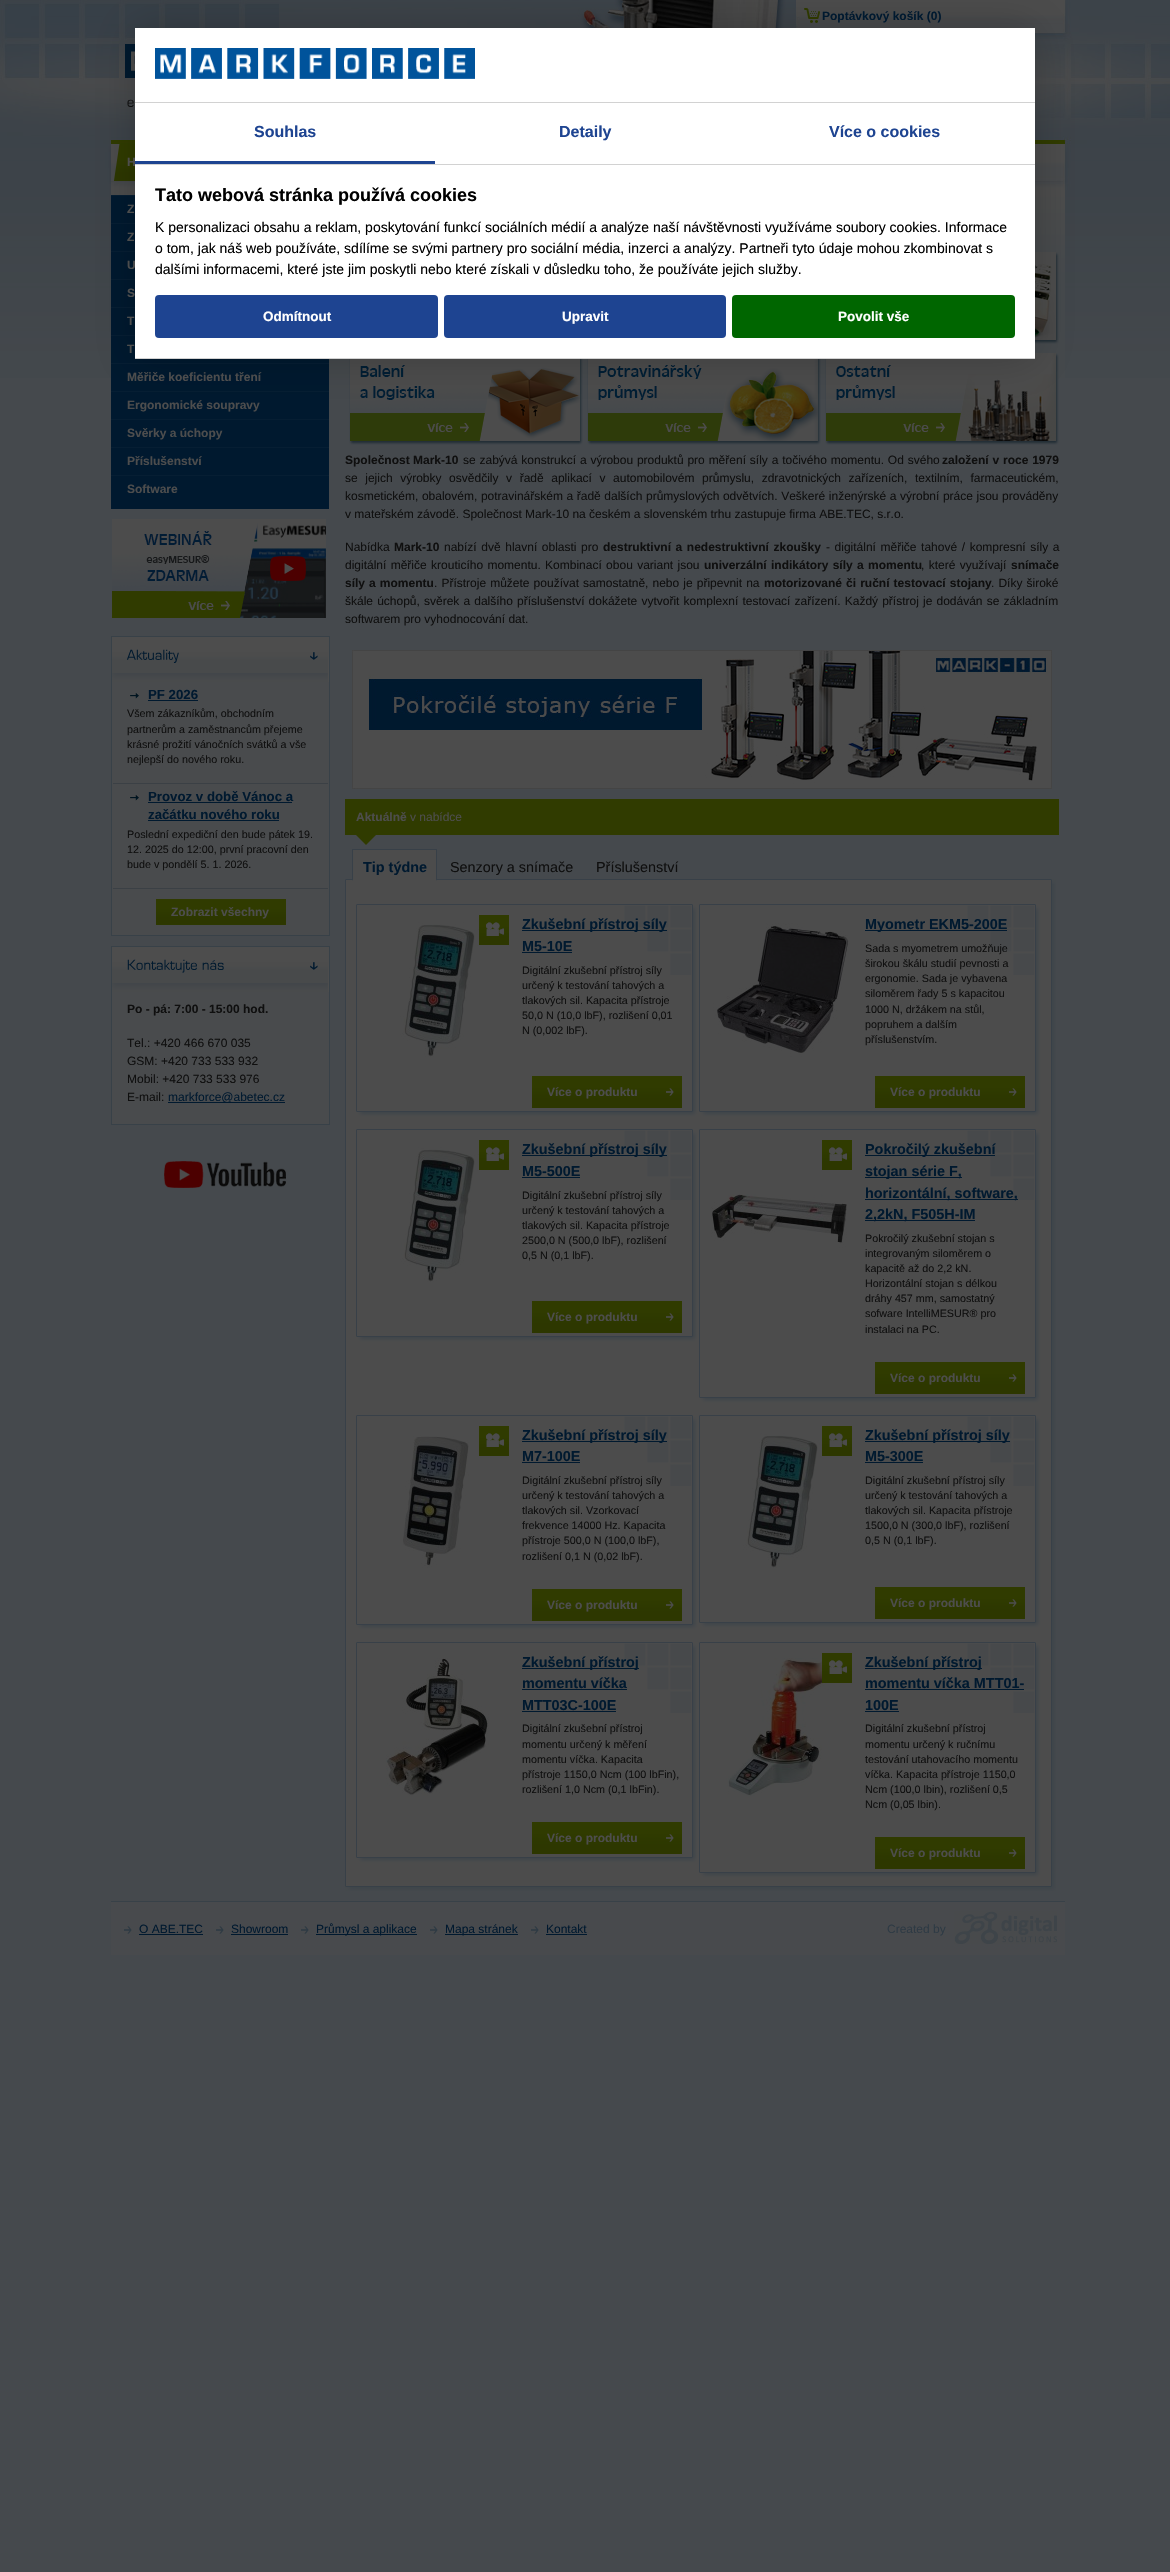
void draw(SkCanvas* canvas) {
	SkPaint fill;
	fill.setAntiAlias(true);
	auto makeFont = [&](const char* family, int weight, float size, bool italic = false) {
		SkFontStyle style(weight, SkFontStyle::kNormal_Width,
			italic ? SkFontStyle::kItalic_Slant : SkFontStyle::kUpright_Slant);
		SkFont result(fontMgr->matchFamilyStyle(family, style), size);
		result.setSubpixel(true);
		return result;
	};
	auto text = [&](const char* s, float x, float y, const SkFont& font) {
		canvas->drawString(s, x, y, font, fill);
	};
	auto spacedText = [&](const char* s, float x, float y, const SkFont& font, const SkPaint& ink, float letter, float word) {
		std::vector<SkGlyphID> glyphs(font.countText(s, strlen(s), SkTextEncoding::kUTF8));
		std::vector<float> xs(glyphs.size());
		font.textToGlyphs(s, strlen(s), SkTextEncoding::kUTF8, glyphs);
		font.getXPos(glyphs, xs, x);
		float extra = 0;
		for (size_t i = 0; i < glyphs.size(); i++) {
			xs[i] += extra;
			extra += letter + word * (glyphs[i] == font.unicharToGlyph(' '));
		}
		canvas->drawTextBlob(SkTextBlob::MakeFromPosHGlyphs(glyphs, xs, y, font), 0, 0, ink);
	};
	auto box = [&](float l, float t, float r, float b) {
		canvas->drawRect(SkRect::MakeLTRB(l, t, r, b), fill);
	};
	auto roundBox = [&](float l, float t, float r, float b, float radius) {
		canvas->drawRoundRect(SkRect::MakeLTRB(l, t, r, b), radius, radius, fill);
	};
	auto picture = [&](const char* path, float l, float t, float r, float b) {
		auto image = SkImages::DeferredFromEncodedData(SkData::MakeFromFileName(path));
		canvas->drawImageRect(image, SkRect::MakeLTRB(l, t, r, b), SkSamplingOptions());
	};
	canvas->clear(0xFF45494D);
	picture("image0.png", 0, 190, 1170, 378);
	picture("image1.png", 0, 0, 1170, 190);
	picture("image2.png", 359, 0, 910, 28);
	picture("image3.png", 804, 8, 820, 23);
	picture("image4.png", 125, 44, 135, 78);
	picture("image5.png", 127, 99, 134, 107);
	picture("image6.png", 120, 144, 135, 181);
	picture("image7.png", 113, 144, 120, 181);
	picture("image9.png", 111, 190, 1065, 378);
	fill.setColor(0xFF00192F);
	box(111, 196, 329, 509);
	fill.setColor(0xFF061E33);
	box(111, 195, 135, 196);
	box(111, 223, 135, 224);
	box(111, 251, 135, 252);
	box(111, 279, 135, 280);
	box(111, 307, 135, 308);
	box(111, 335, 135, 336);
	box(111, 363, 329, 364);
	box(111, 391, 329, 392);
	box(111, 419, 329, 420);
	picture("image18.png", 1035, 252, 1059, 344);
	picture("image19.png", 349, 359, 583, 445);
	picture("image20.png", 587, 359, 821, 445);
	picture("image21.png", 825, 353, 1059, 445);
	fill.setColor(0x33000000);
	fill.setMaskFilter(SkMaskFilter::MakeBlur(kNormal_SkBlurStyle, 20));
	canvas->drawRect(SkRect::MakeLTRB(135, 28, 1035, 359), fill);
	fill.setMaskFilter(nullptr);
	fill.setColor(0xFFFFFFFF);
	box(135, 28, 1035, 358);
	fill.setColor(0xFFD2D2D2);
	box(135, 102, 1035, 103);
	picture("image8.png", 155, 48, 475, 79);
	box(135, 164, 1035, 165);
	fill.setColor(0xFF1E4491);
	box(135, 161, 435, 164);
	fill.setColor(0xFFD2D2D2);
	box(135, 358, 1035, 359);
	fill.setColor(0xFF1E4491);
	roundBox(155, 295, 438, 338, 4);
	roundBox(444, 295, 726, 338, 4);
	fill.setColor(0xFF006600);
	roundBox(732, 295, 1015, 338, 4);
	fill.setColor(0xFF061E33);
	box(111, 447, 329, 448);
	box(111, 475, 329, 476);
	picture("image10.png", 112, 519, 326, 618);
	fill.setColor(0xFF494B4D);
	box(112, 682, 329, 935);
	fill.setStyle(SkPaint::kStroke_Style);
	fill.setStrokeWidth(1);
	fill.setColor(0xFF384148);
	canvas->drawRect(SkRect::MakeLTRB(111.5f, 636.5f, 329.5f, 935.5f), fill);
	fill.setStyle(SkPaint::kFill_Style);
	fill.setColor(0xFF4D4D4D);
	box(112, 637, 329, 682);
	picture("image11.png", 112, 652, 328, 682);
	picture("image12.png", 127, 649, 179, 663);
	fill.setColor(0xFF3B4045);
	box(113, 783, 328, 784);
	picture("image13.png", 130, 693, 139, 699);
	fill.setColor(0xFF00192F);
	box(148, 700, 198, 701);
	fill.setColor(0xFF3B4045);
	box(113, 888, 328, 889);
	picture("image13.png", 130, 795, 139, 801);
	fill.setColor(0xFF00192F);
	box(148, 802, 292, 803);
	box(148, 820, 279, 821);
	picture("image14.png", 156, 899, 286, 925);
	fill.setColor(0xFF494B4D);
	box(112, 992, 329, 1124);
	fill.setStyle(SkPaint::kStroke_Style);
	fill.setColor(0xFF384148);
	canvas->drawRect(SkRect::MakeLTRB(111.5f, 946.5f, 329.5f, 1124.5f), fill);
	fill.setStyle(SkPaint::kFill_Style);
	fill.setColor(0xFF4D4D4D);
	box(112, 947, 329, 992);
	picture("image11.png", 112, 962, 328, 992);
	picture("image15.png", 127, 959, 197, 973);
	picture("image16.png", 202, 960, 224, 970);
	fill.setColor(0xFF00192F);
	box(168, 1102, 285, 1103);
	picture("image17.png", 164, 1161, 286, 1188);
	picture("image22.png", 352, 650, 1052, 789);
	fill.setColor(0xFF303B00);
	box(345, 799, 1059, 835);
	canvas->drawPath(SkPathBuilder().moveTo(355, 834).lineTo(377, 834).lineTo(366, 845).close().detach(), fill);
	picture("image27.png", 345, 879, 1056, 884);
	picture("image23.png", 352, 849, 437, 881);
	picture("image24.png", 436, 850, 437, 881);
	picture("image25.png", 345, 884, 1056, 1886);
	picture("image26.png", 345, 1886, 1056, 1891);
	picture("image28.png", 356, 975, 698, 1111);
	picture("image29.png", 356, 904, 698, 975);
	picture("image30.png", 356, 1111, 698, 1119);
	picture("image31.png", 400, 922, 479, 1057);
	picture("image32.png", 479, 915, 509, 945);
	fill.setColor(0xFF00192F);
	box(522, 930, 667, 931);
	box(522, 952, 572, 953);
	picture("image33.png", 532, 1076, 682, 1108);
	picture("image28.png", 699, 975, 1041, 1111);
	picture("image29.png", 699, 904, 1041, 975);
	picture("image30.png", 699, 1111, 1041, 1119);
	picture("image34.png", 713, 923, 850, 1057);
	box(865, 930, 1007, 931);
	picture("image33.png", 875, 1076, 1025, 1108);
	picture("image28.png", 356, 1200, 698, 1336);
	picture("image29.png", 356, 1129, 698, 1200);
	picture("image30.png", 356, 1336, 698, 1344);
	picture("image35.png", 400, 1147, 479, 1282);
	picture("image32.png", 479, 1140, 509, 1170);
	box(522, 1155, 667, 1156);
	box(522, 1177, 580, 1178);
	picture("image33.png", 532, 1301, 682, 1333);
	picture("image36.png", 699, 1200, 1041, 1397);
	picture("image29.png", 699, 1129, 1041, 1200);
	picture("image30.png", 699, 1397, 1041, 1405);
	picture("image32.png", 822, 1140, 852, 1170);
	picture("image37.png", 711, 1194, 847, 1248);
	box(865, 1155, 995, 1156);
	box(865, 1177, 962, 1178);
	box(865, 1199, 1018, 1200);
	box(865, 1220, 975, 1221);
	picture("image33.png", 875, 1362, 1025, 1394);
	picture("image38.png", 356, 1486, 698, 1624);
	picture("image29.png", 356, 1415, 698, 1486);
	picture("image30.png", 356, 1624, 698, 1632);
	picture("image39.png", 403, 1435, 469, 1568);
	picture("image32.png", 479, 1426, 509, 1456);
	box(522, 1441, 667, 1442);
	box(522, 1462, 580, 1463);
	picture("image33.png", 532, 1589, 682, 1621);
	picture("image28.png", 699, 1486, 1041, 1622);
	picture("image29.png", 699, 1415, 1041, 1486);
	picture("image30.png", 699, 1622, 1041, 1630);
	picture("image40.png", 743, 1433, 822, 1568);
	picture("image32.png", 822, 1426, 852, 1456);
	box(865, 1441, 1010, 1442);
	box(865, 1462, 923, 1463);
	picture("image33.png", 875, 1587, 1025, 1619);
	picture("image41.png", 356, 1713, 698, 1857);
	picture("image29.png", 356, 1642, 698, 1713);
	picture("image30.png", 356, 1857, 698, 1865);
	picture("image42.png", 386, 1658, 489, 1796);
	box(522, 1668, 639, 1669);
	box(522, 1689, 627, 1690);
	box(522, 1711, 616, 1712);
	picture("image33.png", 532, 1822, 682, 1854);
	picture("image43.png", 699, 1713, 1041, 1872);
	picture("image29.png", 699, 1642, 1041, 1713);
	picture("image30.png", 699, 1872, 1041, 1880);
	picture("image44.png", 726, 1658, 830, 1796);
	picture("image32.png", 822, 1653, 852, 1683);
	box(865, 1668, 982, 1669);
	box(865, 1689, 1024, 1690);
	box(865, 1711, 899, 1712);
	picture("image33.png", 875, 1837, 1025, 1869);
	fill.setColor(0xFF484A4D);
	box(111, 1902, 1065, 1955);
	fill.setColor(0xFF384148);
	box(111, 1901, 1065, 1902);
	picture("image45.png", 124, 1926, 132, 1934);
	fill.setColor(0xFF00192F);
	box(139, 1934, 203, 1935);
	picture("image45.png", 216, 1926, 224, 1934);
	box(231, 1934, 288, 1935);
	picture("image45.png", 301, 1926, 309, 1934);
	box(316, 1934, 417, 1935);
	picture("image45.png", 430, 1926, 438, 1934);
	box(445, 1934, 518, 1935);
	picture("image45.png", 531, 1926, 539, 1934);
	box(546, 1934, 587, 1935);
	picture("image46.png", 954, 1911, 1057, 1944);
	auto font1 = makeFont("Liberation Sans", 700, 12);
	text("Poptávkový košík (0)", 822, 20, font1);
	fill.setColor(0xFF4D4D4D);
	text("H", 127, 166, font1);
	auto font2 = makeFont("Liberation Sans", 700, 16);
	fill.setColor(0xFF1E4491);
	text("Souhlas", 254, 137, font2);
	text("Detaily", 559, 137, font2);
	text("Více o cookies", 829, 137, font2);
	auto font3 = makeFont("Liberation Sans", 700, 18);
	fill.setColor(0xFF000000);
	text("Tato webová stránka používá cookies", 155, 201, font3);
	auto font4 = makeFont("Liberation Sans", 400, 14);
	text("K personalizaci obsahu a reklam, poskytování funkcí sociálních médií a analýze naší návštěvnosti využíváme soubory cookies. Informace", 155, 232, font4);
	text("o tom, jak náš web používáte, sdílíme se svými partnery pro sociální média, inzerci a analýzy. Partneři tyto údaje mohou zkombinovat s", 155, 253, font4);
	text("dalšími informacemi, které jste jim poskytli nebo které získali v důsledku toho, že používáte jejich služby.", 155, 274, font4);
	auto font5 = makeFont("Liberation Sans", 700, 13.5f);
	fill.setColor(0xFFFFFFFF);
	text("Odmítnout", 263, 321, font5);
	text("Upravit", 562, 321, font5);
	text("Povolit vše", 838, 321, font5);
	fill.setColor(0xFF4D4D4D);
	text("Z", 127, 213, font1);
	text("Z", 127, 241, font1);
	text("U", 127, 269, font1);
	text("S", 127, 297, font1);
	text("T", 127, 325, font1);
	text("T", 127, 353, font1);
	text("Měřiče koeficientu tření", 127, 381, font1);
	text("Ergonomické soupravy", 127, 409, font1);
	text("Svěrky a úchopy", 127, 437, font1);
	text("Příslušenství", 127, 465, font1);
	text("Software", 127, 493, font1);
	auto font6 = makeFont("Liberation Sans", 700, 13.25f);
	fill.setColor(0xFF00192F);
	text("PF 2026", 148, 699, font6);
	auto font7 = makeFont("Liberation Sans", 400, 10.75f);
	fill.setColor(0xFF0F0F0F);
	text("Všem zákazníkům, obchodním", 127, 717, font7);
	text("partnerům a zaměstnancům přejeme", 127, 733, font7);
	text("krásné prožití vánočních svátků a vše", 127, 748, font7);
	text("nejlepší do nového roku.", 127, 763, font7);
	fill.setColor(0xFF00192F);
	text("Provoz v době Vánoc a", 148, 801, font6);
	text("začátku nového roku", 148, 819, font6);
	fill.setColor(0xFF0F0F0F);
	text("Poslední expediční den bude pátek 19.", 127, 838, font7);
	text("12. 2025 do 12:00, první pracovní den", 127, 853, font7);
	text("bude v pondělí 5. 1. 2026.", 127, 868, font7);
	fill.setColor(0xFF4D4D4D);
	text("Zobrazit všechny", 171, 916, font1);
	fill.setColor(0xFF0F0F0F);
	text("Po - pá: 7:00 - 15:00 hod.", 127, 1013, font1);
	auto font8 = makeFont("Liberation Sans", 400, 12);
	text("Tel.: +420 466 670 035", 127, 1047, font8);
	text("GSM: +420 733 533 932", 127, 1065, font8);
	text("Mobil: +420 733 533 976", 127, 1083, font8);
	text("E-mail:", 127, 1101, font8);
	fill.setColor(0xFF00192F);
	text("markforce@abetec.cz", 168, 1101, font8);
	fill.setColor(0xFF0F0F0F);
	text("Společnost Mark-10", 345, 464, font1);
	spacedText("se zabývá konstrukcí a výrobou produktů pro měření síly a točivého momentu. Od svého", 463, 464, font8, fill, 0, 0.5f);
	spacedText("založení v roce 1979", 942, 464, font1, fill, 0, 0.5f);
	spacedText("se jejich výrobky osvědčily v řadě aplikací v automobilovém průmyslu, zdravotnických zařízeních, textilním, farmaceutickém,", 345, 482, font8, fill, 0, 4.25f);
	spacedText("kosmetickém, obalovém, potravinářském a řadě dalších průmyslových odvětvích. Veškeré inženýrské a výrobní práce jsou prováděny", 345, 500, font8, fill, 0, 0.25f);
	text("v mateřském závodě. Společnost Mark-10 na českém a slovenském trhu zastupuje firma ABE.TEC, s.r.o.", 345, 518, font8);
	text("Nabídka", 345, 551, font8);
	text("Mark-10", 394, 551, font1);
	spacedText("nabízí dvě hlavní oblasti pro", 444, 551, font8, fill, 0, 1.25f);
	spacedText("destruktivní a nedestruktivní zkoušky", 603, 551, font1, fill, 0, 1.25f);
	spacedText("- digitální měřiče tahové / kompresní síly a", 826, 551, font8, fill, 0, 1.25f);
	spacedText("digitální měřiče krouticího momentu. Kombinací obou variant jsou", 345, 569, font8, fill, 0, 1);
	spacedText("univerzální indikátory síly a momentu", 704, 569, font1, fill, 0, 1);
	spacedText(", které využívají", 921, 569, font8, fill, 0, 1);
	text("snímače", 1011, 569, font1);
	spacedText("síly a momentu", 345, 587, font1, fill, 0, 0.75f);
	spacedText(". Přístroje můžete používat samostatně, nebo je připevnit na", 434, 587, font8, fill, 0, 0.75f);
	spacedText("motorizované či ruční testovací stojany", 764, 587, font1, fill, 0, 0.75f);
	spacedText(". Díky široké", 991, 587, font8, fill, 0, 0.75f);
	spacedText("škále úchopů, svěrek a dalšího příslušenství dokážete vytvořit komplexní testovací zařízení. Každý přístroj je dodáván se základním", 345, 605, font8, fill, 0, 0.8f);
	text("softwarem pro vyhodnocování dat.", 345, 623, font8);
	fill.setColor(0xFF4D4D4D);
	text("Aktuálně", 356, 821, font1);
	text("v nabídce", 410, 821, font8);
	auto font9 = makeFont("Liberation Sans", 700, 14.4f);
	fill.setColor(0xFF00192F);
	text("Tip týdne", 363, 872, font9);
	auto font10 = makeFont("Liberation Sans", 400, 14.4f);
	fill.setColor(0xFF0F0F0F);
	text("Senzory a snímače", 450, 872, font10);
	text("Příslušenství", 596, 872, font10);
	fill.setColor(0xFF00192F);
	text("Zkušební přístroj síly", 522, 929, font9);
	text("M5-10E", 522, 951, font9);
	fill.setColor(0xFF0F0F0F);
	text("Digitální zkušební přístroj síly", 522, 974, font7);
	text("určený k testování tahových a", 522, 989, font7);
	text("tlakových sil. Kapacita přístroje", 522, 1004, font7);
	text("50,0 N (10,0 lbF), rozlišení 0,01", 522, 1019, font7);
	text("N (0,002 lbF).", 522, 1034, font7);
	fill.setColor(0xFF4D4D4D);
	text("Více o produktu", 547, 1096, font1);
	fill.setColor(0xFF00192F);
	text("Myometr EKM5-200E", 865, 929, font9);
	fill.setColor(0xFF0F0F0F);
	text("Sada s myometrem umožňuje", 865, 952, font7);
	text("širokou škálu studií pevnosti a", 865, 967, font7);
	text("ergonomie. Sada je vybavena", 865, 982, font7);
	text("siloměrem řady 5 s kapacitou", 865, 997, font7);
	text("1000 N, držákem na stůl,", 865, 1013, font7);
	text("popruhem a dalším", 865, 1028, font7);
	text("příslušenstvím.", 865, 1043, font7);
	fill.setColor(0xFF4D4D4D);
	text("Více o produktu", 890, 1096, font1);
	fill.setColor(0xFF00192F);
	text("Zkušební přístroj síly", 522, 1154, font9);
	text("M5-500E", 522, 1176, font9);
	fill.setColor(0xFF0F0F0F);
	text("Digitální zkušební přístroj síly", 522, 1199, font7);
	text("určený k testování tahových a", 522, 1214, font7);
	text("tlakových sil. Kapacita přístroje", 522, 1229, font7);
	text("2500,0 N (500,0 lbF), rozlišení", 522, 1244, font7);
	text("0,5 N (0,1 lbF).", 522, 1259, font7);
	fill.setColor(0xFF4D4D4D);
	text("Více o produktu", 547, 1321, font1);
	fill.setColor(0xFF00192F);
	text("Pokročilý zkušební", 865, 1154, font9);
	text("stojan série F,", 865, 1176, font9);
	text("horizontální, software,", 865, 1198, font9);
	text("2,2kN, F505H-IM", 865, 1219, font9);
	fill.setColor(0xFF0F0F0F);
	text("Pokročilý zkušební stojan s", 865, 1242, font7);
	text("integrovaným siloměrem o", 865, 1257, font7);
	text("kapacitě až do 2,2 kN.", 865, 1272, font7);
	text("Horizontální stojan s délkou", 865, 1287, font7);
	text("dráhy 457 mm, samostatný", 865, 1302, font7);
	text("sofware IntelliMESUR® pro", 865, 1317, font7);
	text("instalaci na PC.", 865, 1333, font7);
	fill.setColor(0xFF4D4D4D);
	text("Více o produktu", 890, 1382, font1);
	fill.setColor(0xFF00192F);
	text("Zkušební přístroj síly", 522, 1440, font9);
	text("M7-100E", 522, 1461, font9);
	fill.setColor(0xFF0F0F0F);
	text("Digitální zkušební přístroj síly", 522, 1484, font7);
	text("určený k testování tahových a", 522, 1499, font7);
	text("tlakových sil. Vzorkovací", 522, 1514, font7);
	text("frekvence 14000 Hz. Kapacita", 522, 1529, font7);
	text("přístroje 500,0 N (100,0 lbF),", 522, 1544, font7);
	text("rozlišení 0,1 N (0,02 lbF).", 522, 1560, font7);
	fill.setColor(0xFF4D4D4D);
	text("Více o produktu", 547, 1609, font1);
	fill.setColor(0xFF00192F);
	text("Zkušební přístroj síly", 865, 1440, font9);
	text("M5-300E", 865, 1461, font9);
	fill.setColor(0xFF0F0F0F);
	text("Digitální zkušební přístroj síly", 865, 1484, font7);
	text("určený k testování tahových a", 865, 1499, font7);
	text("tlakových sil. Kapacita přístroje", 865, 1514, font7);
	text("1500,0 N (300,0 lbF), rozlišení", 865, 1529, font7);
	text("0,5 N (0,1 lbF).", 865, 1544, font7);
	fill.setColor(0xFF4D4D4D);
	text("Více o produktu", 890, 1607, font1);
	fill.setColor(0xFF00192F);
	text("Zkušební přístroj", 522, 1667, font9);
	text("momentu víčka", 522, 1688, font9);
	text("MTT03C-100E", 522, 1710, font9);
	fill.setColor(0xFF0F0F0F);
	text("Digitální zkušební přístroj", 522, 1732, font7);
	text("momentu určený k měření", 522, 1748, font7);
	text("momentu víčka. Kapacita", 522, 1763, font7);
	text("přístroje 1150,0 Ncm (100 lbFin),", 522, 1778, font7);
	text("rozlišení 1,0 Ncm (0,1 lbFin).", 522, 1793, font7);
	fill.setColor(0xFF4D4D4D);
	text("Více o produktu", 547, 1842, font1);
	fill.setColor(0xFF00192F);
	text("Zkušební přístroj", 865, 1667, font9);
	text("momentu víčka MTT01-", 865, 1688, font9);
	text("100E", 865, 1710, font9);
	fill.setColor(0xFF0F0F0F);
	text("Digitální zkušební přístroj", 865, 1732, font7);
	text("momentu určený k ručnímu", 865, 1748, font7);
	text("testování utahovacího momentu", 865, 1763, font7);
	text("víčka. Kapacita přístroje 1150,0", 865, 1778, font7);
	text("Ncm (100,0 lbin), rozlišení 0,5", 865, 1793, font7);
	text("Ncm (0,05 lbin).", 865, 1808, font7);
	fill.setColor(0xFF4D4D4D);
	text("Více o produktu", 890, 1857, font1);
	fill.setColor(0xFF00192F);
	text("O ABE.TEC", 139, 1933, font8);
	text("Showroom", 231, 1933, font8);
	text("Průmysl a aplikace", 316, 1933, font8);
	text("Mapa stránek", 445, 1933, font8);
	text("Kontakt", 546, 1933, font8);
	fill.setColor(0xFF2E3A44);
	text("Created by", 887, 1933, font8);
}
